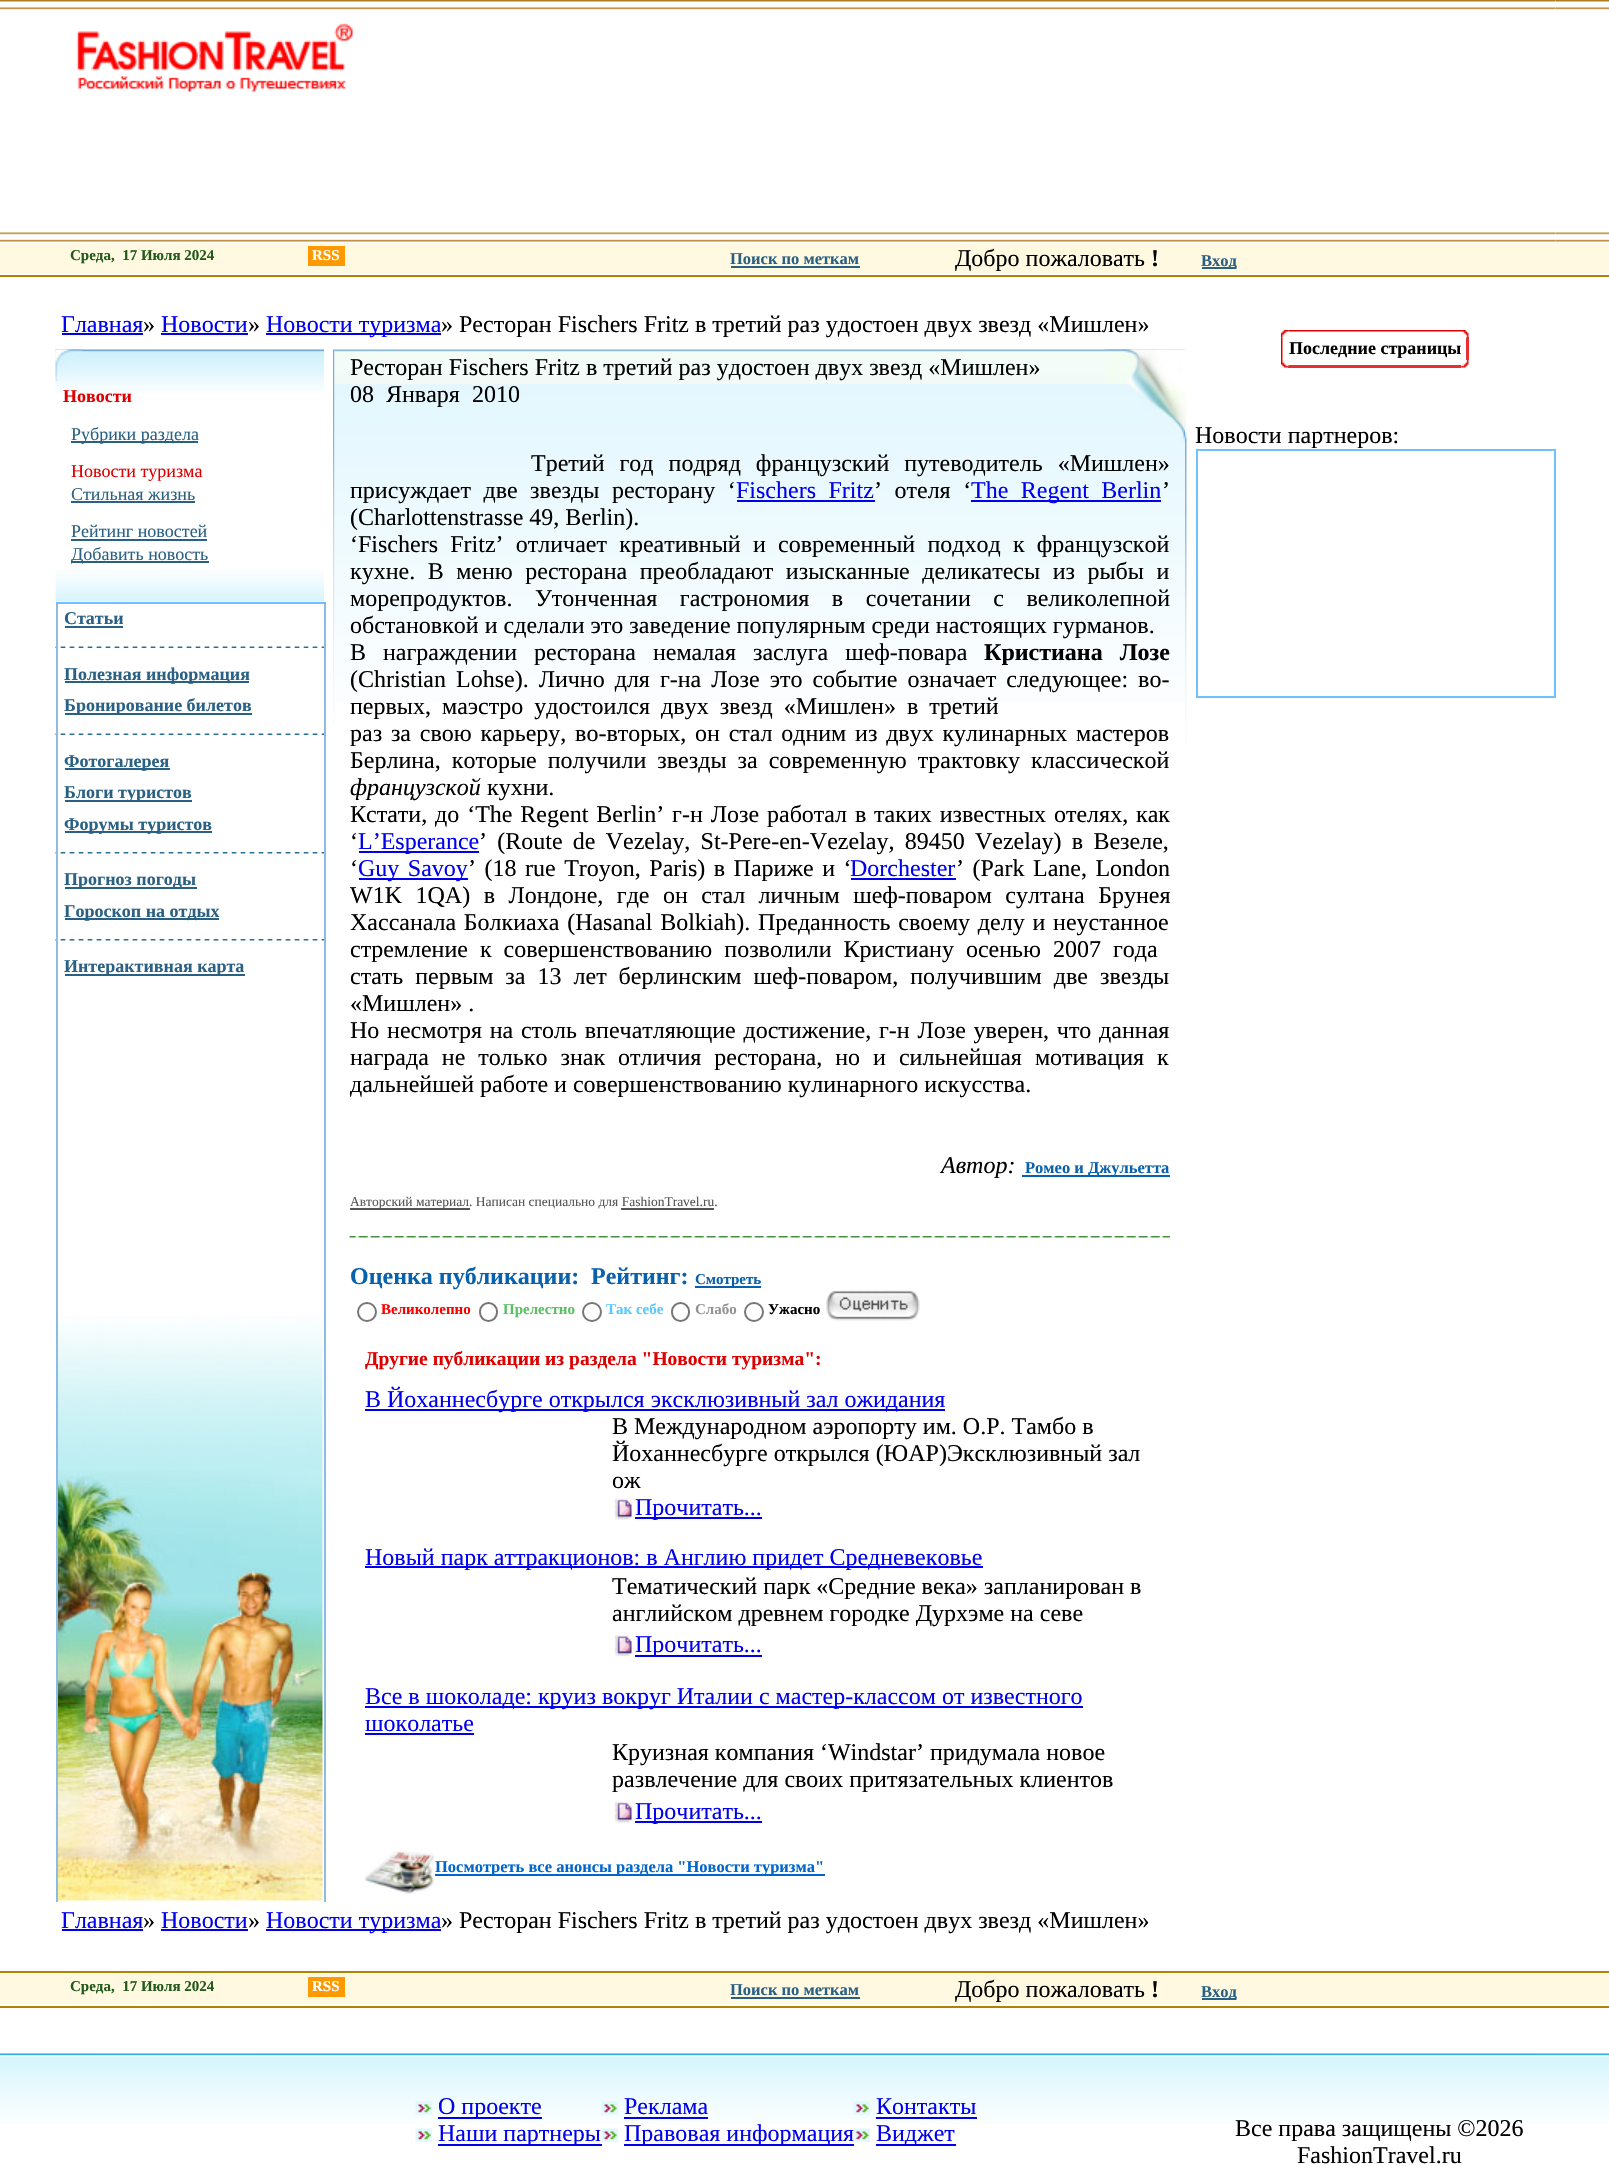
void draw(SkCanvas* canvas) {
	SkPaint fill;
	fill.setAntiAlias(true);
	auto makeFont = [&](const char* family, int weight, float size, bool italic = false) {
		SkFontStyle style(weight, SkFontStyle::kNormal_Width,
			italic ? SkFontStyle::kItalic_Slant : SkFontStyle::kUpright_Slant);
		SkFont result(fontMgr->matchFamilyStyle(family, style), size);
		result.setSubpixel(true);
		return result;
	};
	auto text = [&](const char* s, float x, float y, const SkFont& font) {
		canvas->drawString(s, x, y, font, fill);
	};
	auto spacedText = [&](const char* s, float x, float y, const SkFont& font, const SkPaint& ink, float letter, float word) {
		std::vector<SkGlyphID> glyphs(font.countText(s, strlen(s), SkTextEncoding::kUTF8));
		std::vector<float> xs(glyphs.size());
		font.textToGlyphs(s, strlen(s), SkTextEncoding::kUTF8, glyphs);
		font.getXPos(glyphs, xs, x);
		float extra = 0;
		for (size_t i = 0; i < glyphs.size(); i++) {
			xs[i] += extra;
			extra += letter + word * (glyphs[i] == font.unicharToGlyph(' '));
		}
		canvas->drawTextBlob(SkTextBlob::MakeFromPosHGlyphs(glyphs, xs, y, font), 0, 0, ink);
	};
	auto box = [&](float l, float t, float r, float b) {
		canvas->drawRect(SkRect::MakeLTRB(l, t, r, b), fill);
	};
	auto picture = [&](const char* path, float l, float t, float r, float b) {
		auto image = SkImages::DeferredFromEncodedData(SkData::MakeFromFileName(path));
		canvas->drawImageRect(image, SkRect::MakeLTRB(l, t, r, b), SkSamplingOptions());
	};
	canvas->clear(0xFFFFFFFF);
	picture("image0.png", 0, 0, 54, 242);
	picture("image1.png", 54, 0, 1556, 242);
	picture("image2.png", 76, 23, 353, 92);
	picture("image3.png", 1555, 0, 1609, 242);
	fill.setColor(0xFFFFF9E1);
	box(0, 243, 1609, 273);
	fill.setColor(0xFFFF9900);
	box(308, 246, 345, 266);
	fill.setColor(0xFF296083);
	box(731, 266, 860, 268);
	box(1202, 267, 1236, 269);
	fill.setColor(0xFFB38200);
	box(0, 275, 1609, 277);
	fill.setColor(0xFF0000EE);
	box(62, 333, 143, 335);
	box(161, 333, 248, 335);
	box(266, 333, 441, 335);
	fill.setColor(0xFF8DBBE1);
	box(324, 602, 326, 1902);
	picture("image8.png", 55, 646, 324, 648);
	picture("image8.png", 55, 733, 324, 735);
	picture("image9.png", 55, 852, 324, 854);
	picture("image9.png", 55, 939, 324, 941);
	box(56, 602, 58, 1902);
	fill.setColor(0xFF6FC0FF);
	box(56, 602, 326, 604);
	picture("image4.png", 55, 349, 324, 393);
	picture("image5.png", 55, 570, 324, 602);
	picture("image6.png", 55, 349, 83, 381);
	fill.setColor(0xFF296083);
	box(71, 441, 198, 443);
	box(71, 501, 195, 503);
	box(71, 539, 207, 541);
	box(71, 561, 209, 563);
	picture("image7.png", 58, 1316, 323, 1901);
	box(65, 626, 123, 628);
	box(65, 681, 249, 683);
	box(65, 713, 252, 715);
	box(65, 768, 170, 770);
	box(65, 800, 192, 802);
	box(65, 831, 212, 833);
	box(65, 887, 197, 889);
	box(65, 918, 219, 920);
	box(65, 974, 245, 976);
	picture("image10.png", 333, 349, 335, 725);
	picture("image11.png", 334, 349, 1185, 703);
	picture("image12.png", 1105, 349, 1185, 445);
	fill.setColor(0xFF0000EE);
	box(737, 500, 875, 502);
	box(971, 500, 1161, 502);
	box(359, 851, 479, 853);
	box(359, 878, 468, 880);
	box(851, 878, 956, 880);
	fill.setColor(0xFF0861AD);
	box(1022, 1175, 1170, 1177);
	fill.setColor(0xFF555555);
	box(350, 1208, 470, 1210);
	box(621, 1208, 714, 1210);
	picture("image13.png", 349, 1236, 1170, 1238);
	fill.setColor(0xFF0861AD);
	box(695, 1286, 761, 1288);
	fill.setStyle(SkPaint::kStroke_Style);
	fill.setStrokeWidth(2);
	fill.setColor(0xFF767676);
	canvas->drawCircle(367, 1312, 9, fill);
	canvas->drawRoundRect(SkRect::MakeLTRB(480, 1303, 497, 1321), 8.5f, 8.5f, fill);
	canvas->drawCircle(592, 1312, 9, fill);
	canvas->drawRoundRect(SkRect::MakeLTRB(672, 1303, 689, 1321), 8.5f, 8.5f, fill);
	canvas->drawCircle(754, 1312, 9, fill);
	picture("image14.png", 826, 1290, 920, 1321);
	fill.setStyle(SkPaint::kFill_Style);
	fill.setColor(0xFF0000EE);
	box(365, 1409, 945, 1411);
	picture("image15.png", 614, 1498, 632, 1520);
	box(635, 1517, 762, 1519);
	box(365, 1566, 983, 1568);
	picture("image16.png", 614, 1635, 632, 1657);
	box(635, 1655, 762, 1657);
	box(365, 1706, 1083, 1708);
	box(365, 1733, 474, 1735);
	picture("image15.png", 614, 1801, 632, 1823);
	box(635, 1821, 762, 1823);
	picture("image17.png", 364, 1851, 435, 1894);
	fill.setColor(0xFF0066CC);
	box(435, 1874, 825, 1876);
	picture("image18.png", 1185, 392, 1187, 743);
	picture("image20.png", 1288, 330, 1461, 332);
	picture("image22.png", 1281, 337, 1283, 360);
	picture("image19.png", 1281, 330, 1289, 338);
	fill.setColor(0xFFE63030);
	box(1466, 337, 1469, 360);
	picture("image21.png", 1461, 330, 1469, 338);
	box(1288, 365, 1461, 368);
	picture("image23.png", 1281, 360, 1289, 368);
	picture("image24.png", 1461, 360, 1469, 368);
	fill.setStyle(SkPaint::kStroke_Style);
	fill.setColor(0xFF6FC0FF);
	canvas->drawRect(SkRect::MakeLTRB(1197, 450, 1555, 697), fill);
	fill.setStyle(SkPaint::kFill_Style);
	fill.setColor(0xFF0000EE);
	box(62, 1929, 143, 1931);
	box(161, 1929, 248, 1931);
	box(266, 1929, 441, 1931);
	fill.setColor(0xFFB38200);
	box(0, 1971, 1609, 1973);
	fill.setColor(0xFFFFF9E1);
	box(0, 1974, 1609, 2004);
	fill.setColor(0xFFFF9900);
	box(308, 1977, 345, 1997);
	fill.setColor(0xFF296083);
	box(731, 1997, 860, 1999);
	box(1202, 1998, 1236, 2000);
	fill.setColor(0xFFB38200);
	box(0, 2006, 1609, 2008);
	picture("image25.png", 0, 2053, 1609, 2124);
	picture("image26.png", 415, 2101, 432, 2115);
	fill.setColor(0xFF0000EE);
	box(438, 2117, 542, 2119);
	picture("image27.png", 415, 2128, 432, 2142);
	box(438, 2144, 602, 2146);
	picture("image26.png", 601, 2101, 618, 2115);
	box(624, 2117, 708, 2119);
	picture("image27.png", 601, 2128, 618, 2142);
	box(624, 2144, 854, 2146);
	picture("image28.png", 853, 2101, 870, 2115);
	box(876, 2117, 977, 2119);
	box(876, 2144, 956, 2146);
	auto font1 = makeFont("Liberation Serif", 700, 15);
	fill.setColor(0xFF215A1B);
	text("Среда,  17 Июля 2024", 70, 260, font1);
	fill.setColor(0xFFFFFFFF);
	text("RSS", 312, 260, font1);
	auto font2 = makeFont("Liberation Serif", 700, 16.5f);
	fill.setColor(0xFF296083);
	text("Поиск по меткам", 730, 264, font2);
	auto font3 = makeFont("Liberation Serif", 400, 24);
	fill.setColor(0xFF000000);
	text("Добро пожаловать", 955, 266, font3);
	auto font4 = makeFont("Liberation Serif", 700, 24);
	text("!", 1151, 266, font4);
	fill.setColor(0xFF296083);
	text("Вход", 1201, 266, font2);
	fill.setColor(0xFF0000EE);
	text("Главная", 61, 332, font3);
	fill.setColor(0xFF000000);
	text("»", 143, 332, font3);
	fill.setColor(0xFF0000EE);
	text("Новости", 161, 332, font3);
	fill.setColor(0xFF000000);
	text("»", 248, 332, font3);
	fill.setColor(0xFF0000EE);
	text("Новости туризма", 266, 332, font3);
	fill.setColor(0xFF000000);
	text("» Ресторан Fischers Fritz в третий раз удостоен двух звезд «Мишлен»", 441, 332, font3);
	auto font5 = makeFont("Liberation Serif", 700, 18);
	fill.setColor(0xFFDC0000);
	text("Новости", 63, 402, font5);
	auto font6 = makeFont("Liberation Serif", 400, 18);
	fill.setColor(0xFF296083);
	text("Рубрики раздела", 71, 440, font6);
	fill.setColor(0xFFDC0000);
	text("Новости туризма", 71, 477, font6);
	fill.setColor(0xFF296083);
	text("Стильная жизнь", 71, 500, font6);
	text("Рейтинг новостей", 71, 537, font6);
	text("Добавить новость", 71, 560, font6);
	text("Статьи", 64, 624, font5);
	text("Полезная информация", 64, 680, font5);
	text("Бронирование билетов", 64, 711, font5);
	text("Фотогалерея", 64, 767, font5);
	text("Блоги туристов", 64, 798, font5);
	text("Форумы туристов", 64, 830, font5);
	text("Прогноз погоды", 64, 885, font5);
	text("Гороскоп на отдых", 64, 917, font5);
	text("Интерактивная карта", 64, 972, font5);
	fill.setColor(0xFF000000);
	text("Ресторан Fischers Fritz в третий раз удостоен двух звезд «Мишлен»", 350, 375, font3);
	text("08", 350, 402, font3);
	text("Января", 386, 402, font3);
	text("2010", 472, 402, font3);
	spacedText("Третий год подряд французский путеводитель «Мишлен»", 531, 471, font3, fill, 0, 9);
	spacedText("присуждает две звезды ресторану ‘", 350, 498, font3, fill, 0, 6.5f);
	fill.setColor(0xFF0000EE);
	spacedText("Fischers Fritz", 736, 498, font3, fill, 0, 6.5f);
	fill.setColor(0xFF000000);
	spacedText("’ отеля ‘", 874, 498, font3, fill, 0, 6.5f);
	fill.setColor(0xFF0000EE);
	spacedText("The Regent Berlin", 971, 498, font3, fill, 0, 6.5f);
	fill.setColor(0xFF000000);
	text("’", 1162, 498, font3);
	text("(Charlottenstrasse 49, Berlin).", 350, 525, font3);
	spacedText("‘Fischers Fritz’ отличает креативный и современный подход к французской", 350, 552, font3, fill, 0, 6.25f);
	spacedText("кухне. В меню ресторана преобладают изысканные деликатесы из рыбы и", 350, 579, font3, fill, 0, 6.5f);
	spacedText("морепродуктов. Утонченная гастрономия в сочетании с великолепной", 350, 606, font3, fill, 0, 16.5f);
	text("обстановкой и сделали это заведение популярным среди настоящих гурманов.", 350, 633, font3);
	spacedText("В награждении ресторана немалая заслуга шеф-повара", 350, 660, font3, fill, 0, 11);
	spacedText("Кристиана Лозе", 984, 660, font4, fill, 0, 11);
	spacedText("(Christian Lohse). Лично для г-на Лозе это событие означает следующее: во-", 350, 687, font3, fill, 0, 4);
	spacedText("первых, маэстро удостоился двух звезд «Мишлен»", 350, 714, font3, fill, 0, 5);
	spacedText("в третий", 907, 714, font3, fill, 0, 5);
	spacedText("раз за свою карьеру, во-вторых, он стал одним из двух кулинарных мастеров", 350, 741, font3, fill, 0, 2.75f);
	spacedText("Берлина, которые получили звезды за современную трактовку классической", 350, 768, font3, fill, 0, 5);
	auto font7 = makeFont("Liberation Serif", 400, 24, true);
	text("французской", 350, 795, font7);
	text("кухни.", 487, 795, font3);
	spacedText("Кстати, до ‘The Regent Berlin’ г-н Лозе работал в таких известных отелях, как", 350, 822, font3, fill, 0, 1.9f);
	text("‘", 350, 849, font3);
	fill.setColor(0xFF0000EE);
	text("L’Esperance", 358, 849, font3);
	fill.setColor(0xFF000000);
	spacedText("’ (Route de Vezelay, St-Pere-en-Vezelay, 89450 Vezelay) в Везеле,", 479, 849, font3, fill, 0, 4.25f);
	text("‘", 350, 876, font3);
	fill.setColor(0xFF0000EE);
	spacedText("Guy Savoy", 358, 876, font3, fill, 0, 2.5f);
	fill.setColor(0xFF000000);
	spacedText("’ (18 rue Troyon, Paris) в Париже и ‘", 468, 876, font3, fill, 0, 2.5f);
	fill.setColor(0xFF0000EE);
	text("Dorchester", 850, 876, font3);
	fill.setColor(0xFF000000);
	spacedText("’ (Park Lane, London", 956, 876, font3, fill, 0, 2.5f);
	spacedText("W1K 1QA) в Лондоне, где он стал личным шеф-поваром султана Брунея", 350, 903, font3, fill, 0, 7.5f);
	spacedText("Хассанала Болкиаха (Hasanal Bolkiah). Преданность своему делу и неустанное", 350, 930, font3, fill, 0, 1.75f);
	spacedText("стремление к совершенствованию позволили Кристиану осенью 2007 года", 350, 957, font3, fill, 0, 6);
	spacedText("стать первым за 13 лет берлинским шеф-поваром, получившим две звезды", 350, 984, font3, fill, 0, 6);
	text("«Мишлен» .", 350, 1011, font3);
	spacedText("Но несмотря на столь впечатляющие достижение, г-н Лозе уверен, что данная", 350, 1038, font3, fill, 0, 1.75f);
	spacedText("награда не только знак отличия ресторана, но и сильнейшая мотивация к", 350, 1065, font3, fill, 0, 7);
	text("дальнейшей работе и совершенствованию кулинарного искусства.", 350, 1092, font3);
	text("Автор:", 941, 1173, font7);
	fill.setColor(0xFF0861AD);
	text("Ромео и Джульетта", 1025, 1173, font2);
	auto font8 = makeFont("Liberation Serif", 400, 13.5f);
	fill.setColor(0xFF555555);
	text("Авторский материал. Написан специально для FashionTravel.ru.", 350, 1206, font8);
	fill.setColor(0xFF0861AD);
	text("Оценка публикации:", 350, 1284, font4);
	text("Рейтинг:", 591, 1284, font4);
	text("Смотреть", 695, 1284, font1);
	fill.setColor(0xFFFF0000);
	text("Великолепно", 381, 1314, font1);
	fill.setColor(0xFF5BBF65);
	text("Прелестно", 503, 1314, font1);
	fill.setColor(0xFF5AC9FC);
	text("Так себе", 606, 1314, font1);
	fill.setColor(0xFF939393);
	text("Слабо", 695, 1314, font1);
	fill.setColor(0xFF000000);
	text("Ужасно", 768, 1314, font1);
	auto font9 = makeFont("Liberation Serif", 700, 19.5f);
	fill.setColor(0xFFDC0000);
	text("Другие публикации из раздела \"Новости туризма\":", 365, 1365, font9);
	fill.setColor(0xFF0000EE);
	text("В Йоханнесбурге открылся эксклюзивный зал ожидания", 365, 1407, font3);
	fill.setColor(0xFF000000);
	text("В Международном аэропорту им. О.Р. Тамбо в", 612, 1434, font3);
	text("Йоханнесбурге открылся (ЮАР)Эксклюзивный зал", 612, 1461, font3);
	text("ож", 612, 1488, font3);
	fill.setColor(0xFF0000EE);
	text("Прочитать...", 635, 1515, font3);
	text("Новый парк аттракционов: в Англию придет Средневековье", 365, 1565, font3);
	fill.setColor(0xFF000000);
	text("Тематический парк «Средние века» запланирован в", 612, 1594, font3);
	text("английском древнем городке Дурхэме на севе", 612, 1621, font3);
	fill.setColor(0xFF0000EE);
	text("Прочитать...", 635, 1652, font3);
	text("Все в шоколаде: круиз вокруг Италии с мастер-классом от известного", 365, 1704, font3);
	text("шоколатье", 365, 1731, font3);
	fill.setColor(0xFF000000);
	text("Круизная компания ‘Windstar’ придумала новое", 612, 1760, font3);
	text("развлечение для своих притязательных клиентов", 612, 1787, font3);
	fill.setColor(0xFF0000EE);
	text("Прочитать...", 635, 1819, font3);
	fill.setColor(0xFF0066CC);
	text("Посмотреть все анонсы раздела \"Новости туризма\"", 435, 1872, font2);
	fill.setColor(0xFF000000);
	text("Последние страницы", 1289, 354, font5);
	text("Новости партнеров:", 1195, 443, font3);
	fill.setColor(0xFF0000EE);
	text("Главная", 61, 1928, font3);
	fill.setColor(0xFF000000);
	text("»", 143, 1928, font3);
	fill.setColor(0xFF0000EE);
	text("Новости", 161, 1928, font3);
	fill.setColor(0xFF000000);
	text("»", 248, 1928, font3);
	fill.setColor(0xFF0000EE);
	text("Новости туризма", 266, 1928, font3);
	fill.setColor(0xFF000000);
	text("» Ресторан Fischers Fritz в третий раз удостоен двух звезд «Мишлен»", 441, 1928, font3);
	fill.setColor(0xFF215A1B);
	text("Среда,  17 Июля 2024", 70, 1991, font1);
	fill.setColor(0xFFFFFFFF);
	text("RSS", 312, 1991, font1);
	fill.setColor(0xFF296083);
	text("Поиск по меткам", 730, 1995, font2);
	fill.setColor(0xFF000000);
	text("Добро пожаловать", 955, 1997, font3);
	text("!", 1151, 1997, font4);
	fill.setColor(0xFF296083);
	text("Вход", 1201, 1997, font2);
	fill.setColor(0xFF0000EE);
	text("О проекте", 438, 2114, font3);
	text("Наши партнеры", 438, 2141, font3);
	text("Реклама", 624, 2114, font3);
	text("Правовая информация", 624, 2141, font3);
	text("Контакты", 876, 2114, font3);
	picture("image29.png", 853, 2128, 870, 2142);
	text("Виджет", 876, 2141, font3);
	fill.setColor(0xFF000000);
	text("Все права защищены ©2026", 1235, 2136, font3);
	text("FashionTravel.ru", 1297, 2163, font3);
}
